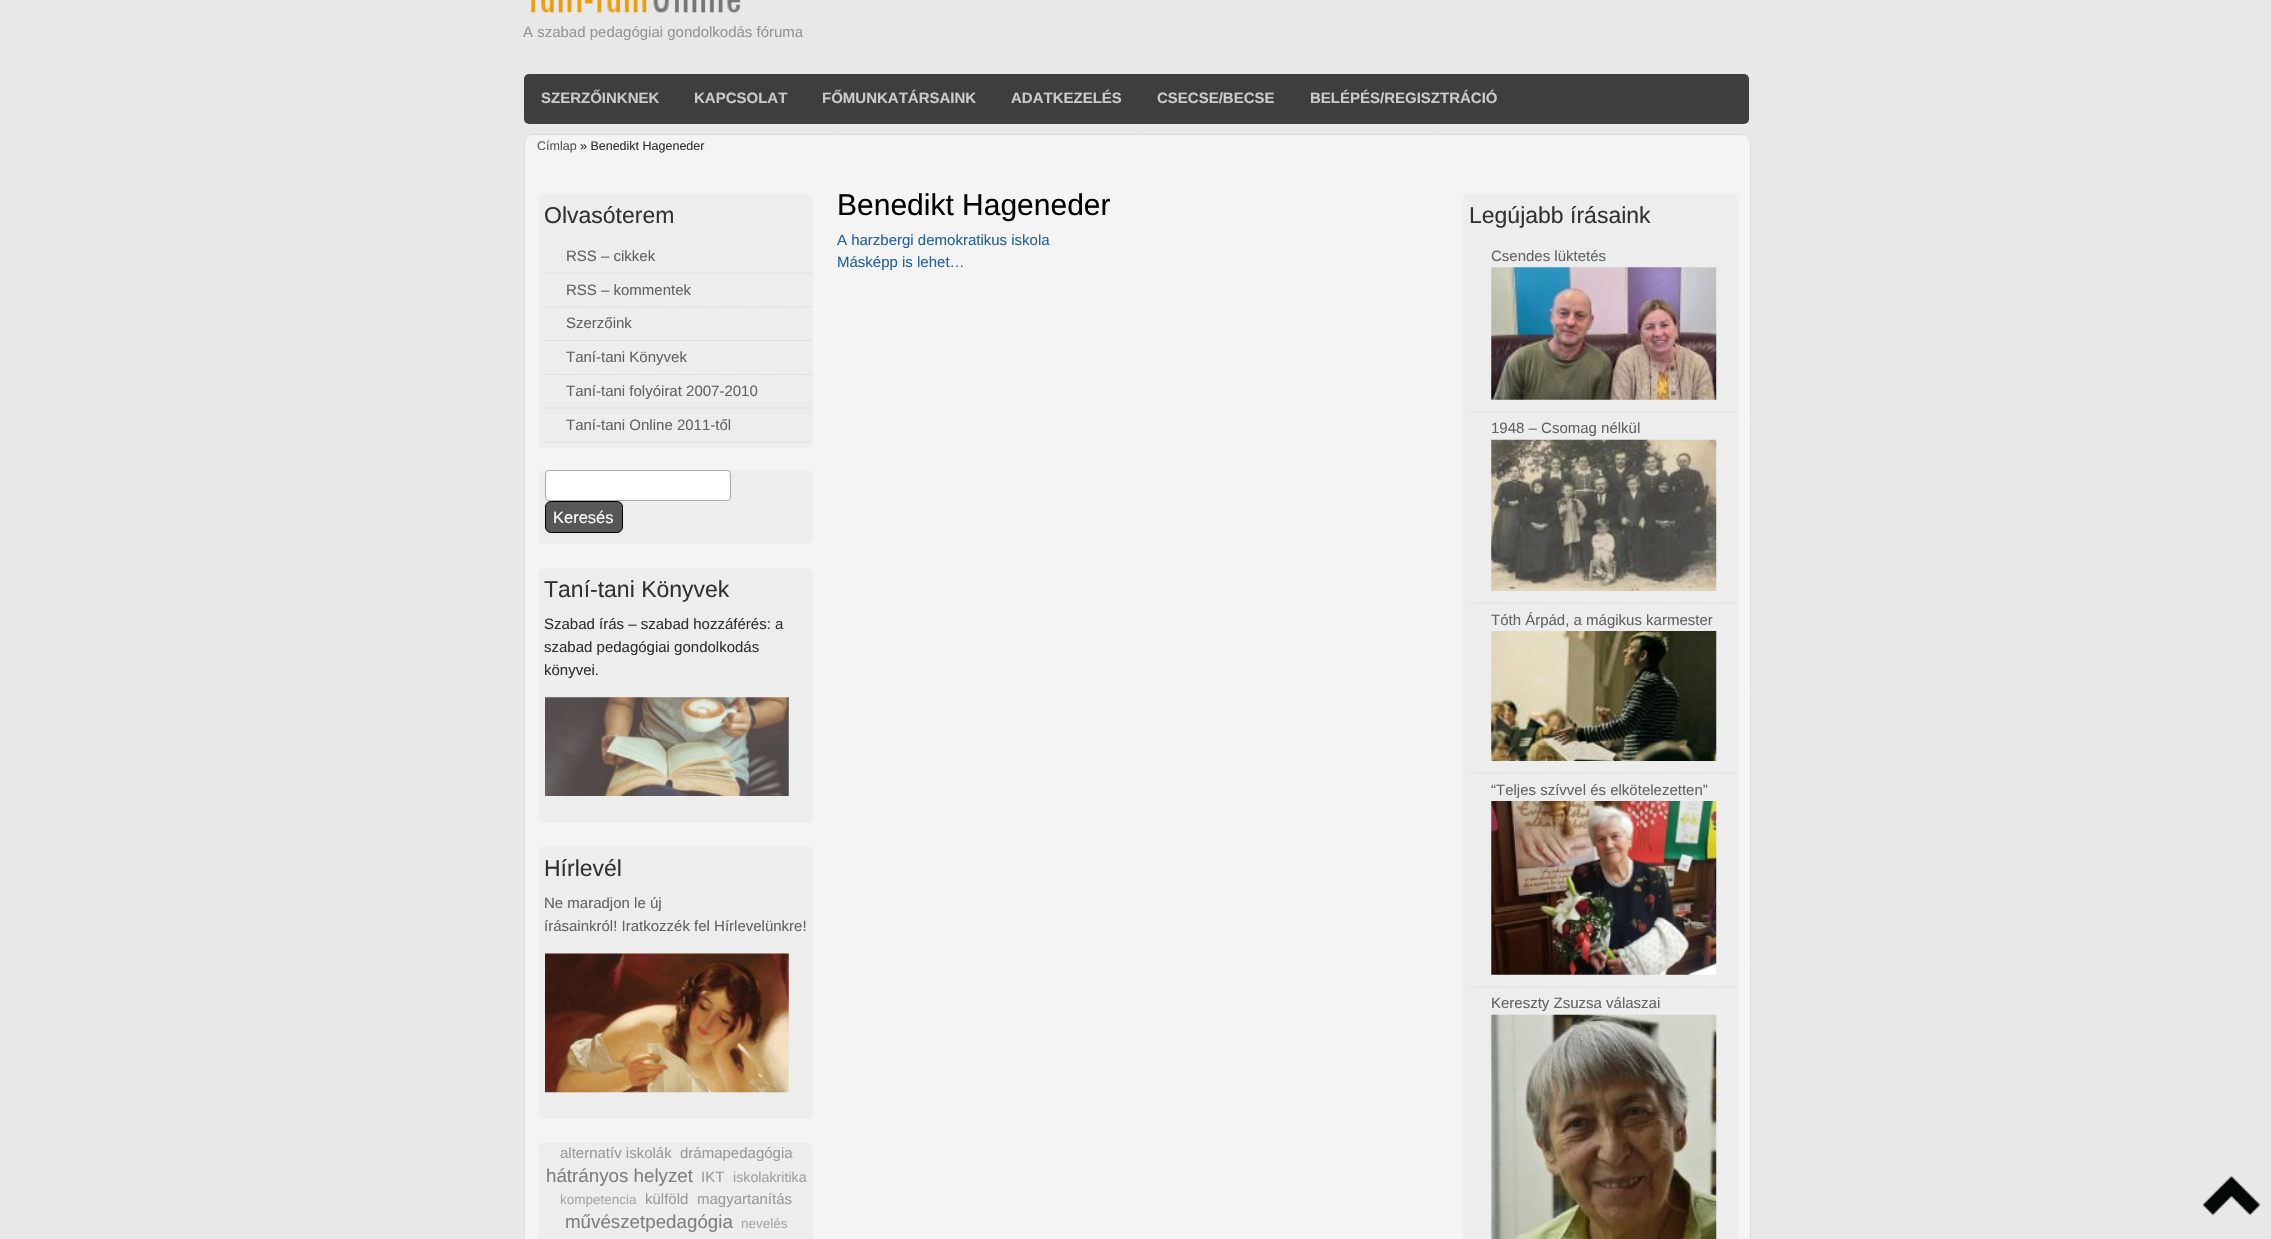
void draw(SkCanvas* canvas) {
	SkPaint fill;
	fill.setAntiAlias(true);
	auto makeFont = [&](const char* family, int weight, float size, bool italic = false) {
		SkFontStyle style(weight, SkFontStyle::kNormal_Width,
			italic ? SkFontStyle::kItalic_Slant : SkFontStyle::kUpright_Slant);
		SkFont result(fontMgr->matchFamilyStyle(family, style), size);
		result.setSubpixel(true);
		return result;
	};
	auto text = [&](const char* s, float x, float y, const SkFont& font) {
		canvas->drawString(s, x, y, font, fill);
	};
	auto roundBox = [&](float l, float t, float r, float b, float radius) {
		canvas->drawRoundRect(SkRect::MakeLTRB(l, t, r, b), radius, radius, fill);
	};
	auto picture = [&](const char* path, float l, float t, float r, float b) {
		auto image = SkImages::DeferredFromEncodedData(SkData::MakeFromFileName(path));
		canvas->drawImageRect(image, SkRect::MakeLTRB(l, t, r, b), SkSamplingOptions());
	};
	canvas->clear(0xFFE8E8E8);
	picture("image0.png", 531, 0, 741, 13);
	fill.setColor(0xFF3E3E3E);
	roundBox(524, 74, 1749, 124, 5);
	fill.setColor(0xFFF4F4F4);
	canvas->drawRoundRect(SkRect::MakeLTRB(524.5f, 134.5f, 1750.5f, 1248.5f), 8.5f, 8.5f, fill);
	fill.setStyle(SkPaint::kStroke_Style);
	fill.setStrokeWidth(1);
	fill.setColor(0xFFDBDBDB);
	canvas->drawRoundRect(SkRect::MakeLTRB(524.5f, 134.5f, 1750.5f, 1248.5f), 8.5f, 8.5f, fill);
	fill.setStyle(SkPaint::kFill_Style);
	fill.setColor(0xFFEDEDEE);
	roundBox(538, 194, 813, 448, 6);
	fill.setStyle(SkPaint::kStroke_Style);
	fill.setStrokeWidth(1.2f);
	fill.setColor(0xFFD4D2D2);
	fill.setPathEffect(SkDashPathEffect::Make({{1.25f, 1.25f}}, 0));
	canvas->drawPath(SkPathBuilder().moveTo(545, 273).lineTo(812.5f, 273).detach(), fill);
	fill.setPathEffect(nullptr);
	fill.setPathEffect(SkDashPathEffect::Make({{1.25f, 1.25f}}, 0));
	canvas->drawPath(SkPathBuilder().moveTo(545, 307).lineTo(812.5f, 307).detach(), fill);
	fill.setPathEffect(nullptr);
	fill.setPathEffect(SkDashPathEffect::Make({{1.25f, 1.25f}}, 0));
	canvas->drawPath(SkPathBuilder().moveTo(545, 340.5f).lineTo(812.5f, 340.5f).detach(), fill);
	fill.setPathEffect(nullptr);
	fill.setPathEffect(SkDashPathEffect::Make({{1.25f, 1.25f}}, 0));
	canvas->drawPath(SkPathBuilder().moveTo(545, 374.5f).lineTo(812.5f, 374.5f).detach(), fill);
	fill.setPathEffect(nullptr);
	fill.setPathEffect(SkDashPathEffect::Make({{1.25f, 1.25f}}, 0));
	canvas->drawPath(SkPathBuilder().moveTo(545, 408).lineTo(812.5f, 408).detach(), fill);
	fill.setPathEffect(nullptr);
	fill.setPathEffect(SkDashPathEffect::Make({{1.25f, 1.25f}}, 0));
	canvas->drawPath(SkPathBuilder().moveTo(545, 442).lineTo(812.5f, 442).detach(), fill);
	fill.setPathEffect(nullptr);
	fill.setStyle(SkPaint::kFill_Style);
	fill.setColor(0xFFEDEDEE);
	roundBox(538, 470, 813, 544, 6);
	fill.setColor(0xFFFFFFFF);
	canvas->drawRoundRect(SkRect::MakeLTRB(545.5f, 470.5f, 730.5f, 500.5f), 3.5f, 3.5f, fill);
	fill.setStyle(SkPaint::kStroke_Style);
	fill.setStrokeWidth(1);
	fill.setColor(0xFFACACAC);
	canvas->drawRoundRect(SkRect::MakeLTRB(545.5f, 470.5f, 730.5f, 500.5f), 3.5f, 3.5f, fill);
	fill.setStyle(SkPaint::kFill_Style);
	fill.setColor(0xFF575757);
	canvas->drawRoundRect(SkRect::MakeLTRB(545.5f, 501.5f, 622.5f, 532.5f), 5.5f, 5.5f, fill);
	fill.setStyle(SkPaint::kStroke_Style);
	fill.setColor(0xFF000000);
	canvas->drawRoundRect(SkRect::MakeLTRB(545.5f, 501.5f, 622.5f, 532.5f), 5.5f, 5.5f, fill);
	fill.setStyle(SkPaint::kFill_Style);
	fill.setColor(0xFFEDEDEE);
	roundBox(538, 568, 813, 823, 6);
	picture("image1.png", 545, 697, 789, 796);
	roundBox(538, 846, 813, 1119, 6);
	picture("image2.png", 545, 953, 789, 1093);
	roundBox(538, 1143, 813, 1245, 6);
	roundBox(1463, 194, 1738, 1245, 6);
	fill.setStyle(SkPaint::kStroke_Style);
	fill.setStrokeWidth(1.2f);
	fill.setColor(0xFFD4D2D2);
	fill.setPathEffect(SkDashPathEffect::Make({{1.25f, 1.25f}}, 0));
	canvas->drawPath(SkPathBuilder().moveTo(1470, 412).lineTo(1737.5f, 412).detach(), fill);
	fill.setPathEffect(nullptr);
	picture("image3.png", 1491, 267, 1717, 400);
	fill.setPathEffect(SkDashPathEffect::Make({{1.25f, 1.25f}}, 0));
	canvas->drawPath(SkPathBuilder().moveTo(1470, 603).lineTo(1737.5f, 603).detach(), fill);
	fill.setPathEffect(nullptr);
	picture("image4.png", 1491, 439, 1717, 591);
	fill.setPathEffect(SkDashPathEffect::Make({{1.25f, 1.25f}}, 0));
	canvas->drawPath(SkPathBuilder().moveTo(1470, 773).lineTo(1737.5f, 773).detach(), fill);
	fill.setPathEffect(nullptr);
	picture("image5.png", 1491, 631, 1717, 761);
	fill.setPathEffect(SkDashPathEffect::Make({{1.25f, 1.25f}}, 0));
	canvas->drawPath(SkPathBuilder().moveTo(1470, 987).lineTo(1737.5f, 987).detach(), fill);
	fill.setPathEffect(nullptr);
	picture("image6.png", 1491, 801, 1717, 975);
	picture("image7.png", 1491, 1014, 1717, 1239);
	picture("image8.png", 2202, 1176, 2261, 1216);
	auto font1 = makeFont("Liberation Sans", 400, 15);
	fill.setStyle(SkPaint::kFill_Style);
	fill.setColor(0xFF959595);
	text("A szabad pedagógiai gondolkodás fóruma", 523, 37, font1);
	auto font2 = makeFont("Liberation Sans", 700, 15);
	fill.setColor(0xFFCACACA);
	text("SZERZŐINKNEK", 541, 103, font2);
	text("KAPCSOLAT", 694, 103, font2);
	text("FŐMUNKATÁRSAINK", 822, 103, font2);
	text("ADATKEZELÉS", 1011, 103, font2);
	text("CSECSE/BECSE", 1157, 103, font2);
	text("BELÉPÉS/REGISZTRÁCIÓ", 1310, 103, font2);
	auto font3 = makeFont("Liberation Sans", 400, 12.5f);
	fill.setColor(0xFF585858);
	text("Címlap", 537, 150, font3);
	fill.setColor(0xFF323232);
	text("» Benedikt Hageneder", 580, 150, font3);
	auto font4 = makeFont("Liberation Sans", 400, 23);
	text("Olvasóterem", 544, 223, font4);
	fill.setColor(0xFF636363);
	text("RSS – cikkek", 566, 261, font1);
	text("RSS – kommentek", 566, 295, font1);
	text("Szerzőink", 566, 328, font1);
	text("Taní-tani Könyvek", 566, 362, font1);
	text("Taní-tani folyóirat 2007-2010", 566, 396, font1);
	text("Taní-tani Online 2011-től", 566, 430, font1);
	auto font5 = makeFont("Liberation Sans", 400, 16.5f);
	fill.setColor(0xFFFFFFFF);
	text("Keresés", 553, 523, font5);
	fill.setColor(0xFF323232);
	text("Taní-tani Könyvek", 544, 597, font4);
	text("Szabad írás – szabad hozzáférés: a", 544, 629, font1);
	text("szabad pedagógiai gondolkodás", 544, 652, font1);
	text("könyvei.", 544, 675, font1);
	text("Hírlevél", 544, 876, font4);
	fill.setColor(0xFF636363);
	text("Ne maradjon le új", 544, 908, font1);
	text("írásainkról! Iratkozzék fel Hírlevelünkre!", 544, 931, font1);
	fill.setColor(0xFF9A9A9B);
	text("alternatív iskolák", 560, 1158, font1);
	text("drámapedagógia", 680, 1158, font1);
	auto font6 = makeFont("Liberation Sans", 400, 18.75f);
	fill.setColor(0xFF7F7F7F);
	text("hátrányos helyzet", 546, 1182, font6);
	fill.setColor(0xFF9A9A9B);
	text("IKT", 701, 1182, font1);
	auto font7 = makeFont("Liberation Sans", 400, 14.25f);
	fill.setColor(0xFFA1A1A2);
	text("iskolakritika", 733, 1182, font7);
	auto font8 = makeFont("Liberation Sans", 400, 13.5f);
	fill.setColor(0xFFA8A8A9);
	text("kompetencia", 560, 1204, font8);
	fill.setColor(0xFF9A9A9B);
	text("külföld", 645, 1204, font1);
	text("magyartanítás", 697, 1204, font1);
	fill.setColor(0xFF7F7F7F);
	text("művészetpedagógia", 565, 1228, font6);
	fill.setColor(0xFFA8A8A9);
	text("nevelés", 741, 1228, font8);
	auto font9 = makeFont("Liberation Sans", 400, 30);
	fill.setColor(0xFF000000);
	text("Benedikt Hageneder", 837, 215, font9);
	fill.setColor(0xFF2262A4);
	text("A harzbergi demokratikus iskola", 837, 245, font1);
	text("Másképp is lehet…", 837, 267, font1);
	fill.setColor(0xFF323232);
	text("Legújabb írásaink", 1469, 223, font4);
	fill.setColor(0xFF636363);
	text("Csendes lüktetés", 1491, 261, font1);
	text("1948 – Csomag nélkül", 1491, 433, font1);
	text("Tóth Árpád, a mágikus karmester", 1491, 625, font1);
	text("“Teljes szívvel és elkötelezetten”", 1491, 795, font1);
	text("Kereszty Zsuzsa válaszai", 1491, 1008, font1);
}
